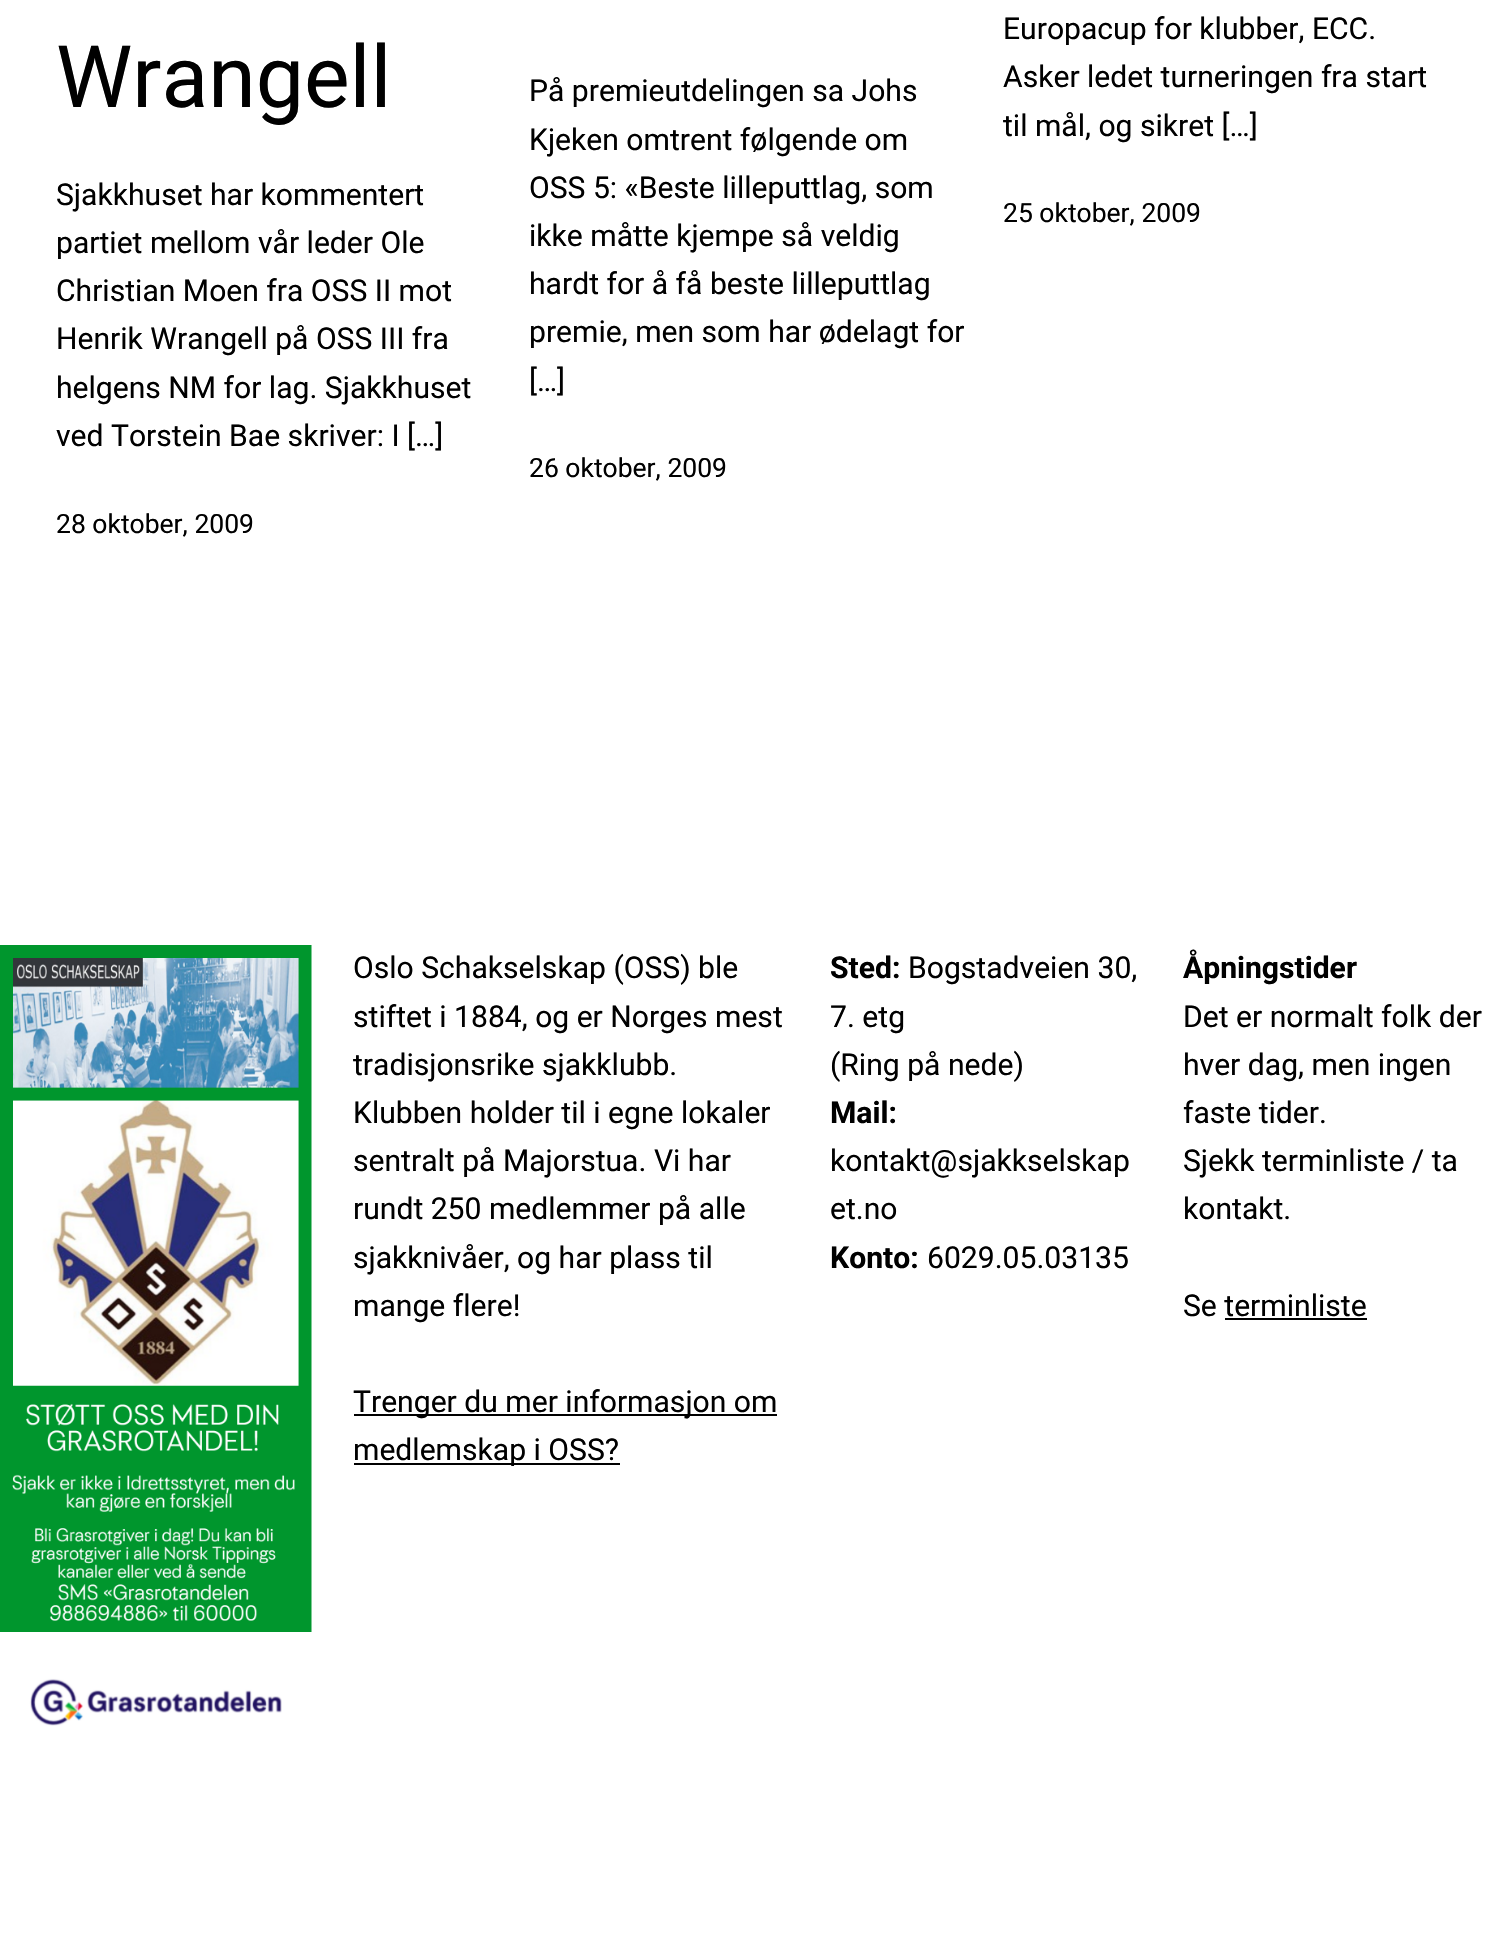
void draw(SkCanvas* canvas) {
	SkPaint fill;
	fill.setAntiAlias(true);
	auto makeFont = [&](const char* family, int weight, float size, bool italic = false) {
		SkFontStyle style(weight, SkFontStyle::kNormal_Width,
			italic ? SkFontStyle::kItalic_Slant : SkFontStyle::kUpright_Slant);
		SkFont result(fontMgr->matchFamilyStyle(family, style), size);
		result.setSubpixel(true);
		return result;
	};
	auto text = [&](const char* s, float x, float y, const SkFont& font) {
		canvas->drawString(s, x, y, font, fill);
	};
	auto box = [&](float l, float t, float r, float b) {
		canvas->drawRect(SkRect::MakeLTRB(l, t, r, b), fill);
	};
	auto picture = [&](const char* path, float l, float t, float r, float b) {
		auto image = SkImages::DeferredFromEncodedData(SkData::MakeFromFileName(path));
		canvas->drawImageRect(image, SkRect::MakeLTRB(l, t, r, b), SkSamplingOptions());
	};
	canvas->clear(0xFFFFFFFF);
	picture("image0.png", 0, 945, 312, 1726);
	fill.setColor(0xFF000000);
	box(354, 1414, 777, 1416);
	box(354, 1463, 620, 1465);
	box(1225, 1318, 1367, 1320);
	auto font1 = makeFont("Roboto", 400, 86);
	text("Wrangell", 56, 107, font1);
	auto font2 = makeFont("Roboto", 400, 30.1f);
	text("Sjakkhuset har kommentert", 56, 205, font2);
	text("partiet mellom vår leder Ole", 56, 253, font2);
	text("Christian Moen fra OSS II mot", 56, 301, font2);
	text("Henrik Wrangell på OSS III fra", 56, 349, font2);
	text("helgens NM for lag. Sjakkhuset", 56, 398, font2);
	text("ved Torstein Bae skriver: I […]", 56, 446, font2);
	auto font3 = makeFont("Roboto", 400, 26.5f);
	text("28 oktober, 2009", 56, 533, font3);
	text("På premieutdelingen sa Johs", 529, 101, font2);
	text("Kjeken omtrent følgende om", 529, 150, font2);
	text("OSS 5: «Beste lilleputtlag, som", 529, 198, font2);
	text("ikke måtte kjempe så veldig", 529, 246, font2);
	text("hardt for å få beste lilleputtlag", 529, 294, font2);
	text("premie, men som har ødelagt for", 529, 342, font2);
	text("[…]", 529, 391, font2);
	text("26 oktober, 2009", 529, 477, font3);
	text("Europacup for klubber, ECC.", 1003, 39, font2);
	text("Asker ledet turneringen fra start", 1003, 87, font2);
	text("til mål, og sikret […]", 1003, 136, font2);
	text("25 oktober, 2009", 1003, 222, font3);
	text("Oslo Schakselskap (OSS) ble", 353, 978, font2);
	text("stiftet i 1884, og er Norges mest", 353, 1027, font2);
	text("tradisjonsrike sjakklubb.", 353, 1075, font2);
	text("Klubben holder til i egne lokaler", 353, 1123, font2);
	text("sentralt på Majorstua. Vi har", 353, 1171, font2);
	text("rundt 250 medlemmer på alle", 353, 1219, font2);
	text("sjakknivåer, og har plass til", 353, 1268, font2);
	text("mange flere!", 353, 1316, font2);
	text("Trenger du mer informasjon om", 353, 1412, font2);
	text("medlemskap i OSS?", 353, 1460, font2);
	auto font4 = makeFont("Roboto", 700, 30.1f);
	text("Sted:", 830, 978, font4);
	text("Bogstadveien 30,", 908, 978, font2);
	text("7. etg", 830, 1027, font2);
	text("(Ring på nede)", 830, 1075, font2);
	text("Mail:", 830, 1123, font4);
	text("kontakt@sjakkselskap", 830, 1171, font2);
	text("et.no", 830, 1219, font2);
	text("Konto:", 830, 1268, font4);
	text("6029.05.03135", 927, 1268, font2);
	text("Åpningstider", 1183, 978, font4);
	text("Det er normalt folk der", 1183, 1027, font2);
	text("hver dag, men ingen", 1183, 1075, font2);
	text("faste tider.", 1183, 1123, font2);
	text("Sjekk terminliste / ta", 1183, 1171, font2);
	text("kontakt.", 1183, 1219, font2);
	text("Se terminliste", 1183, 1316, font2);
}
